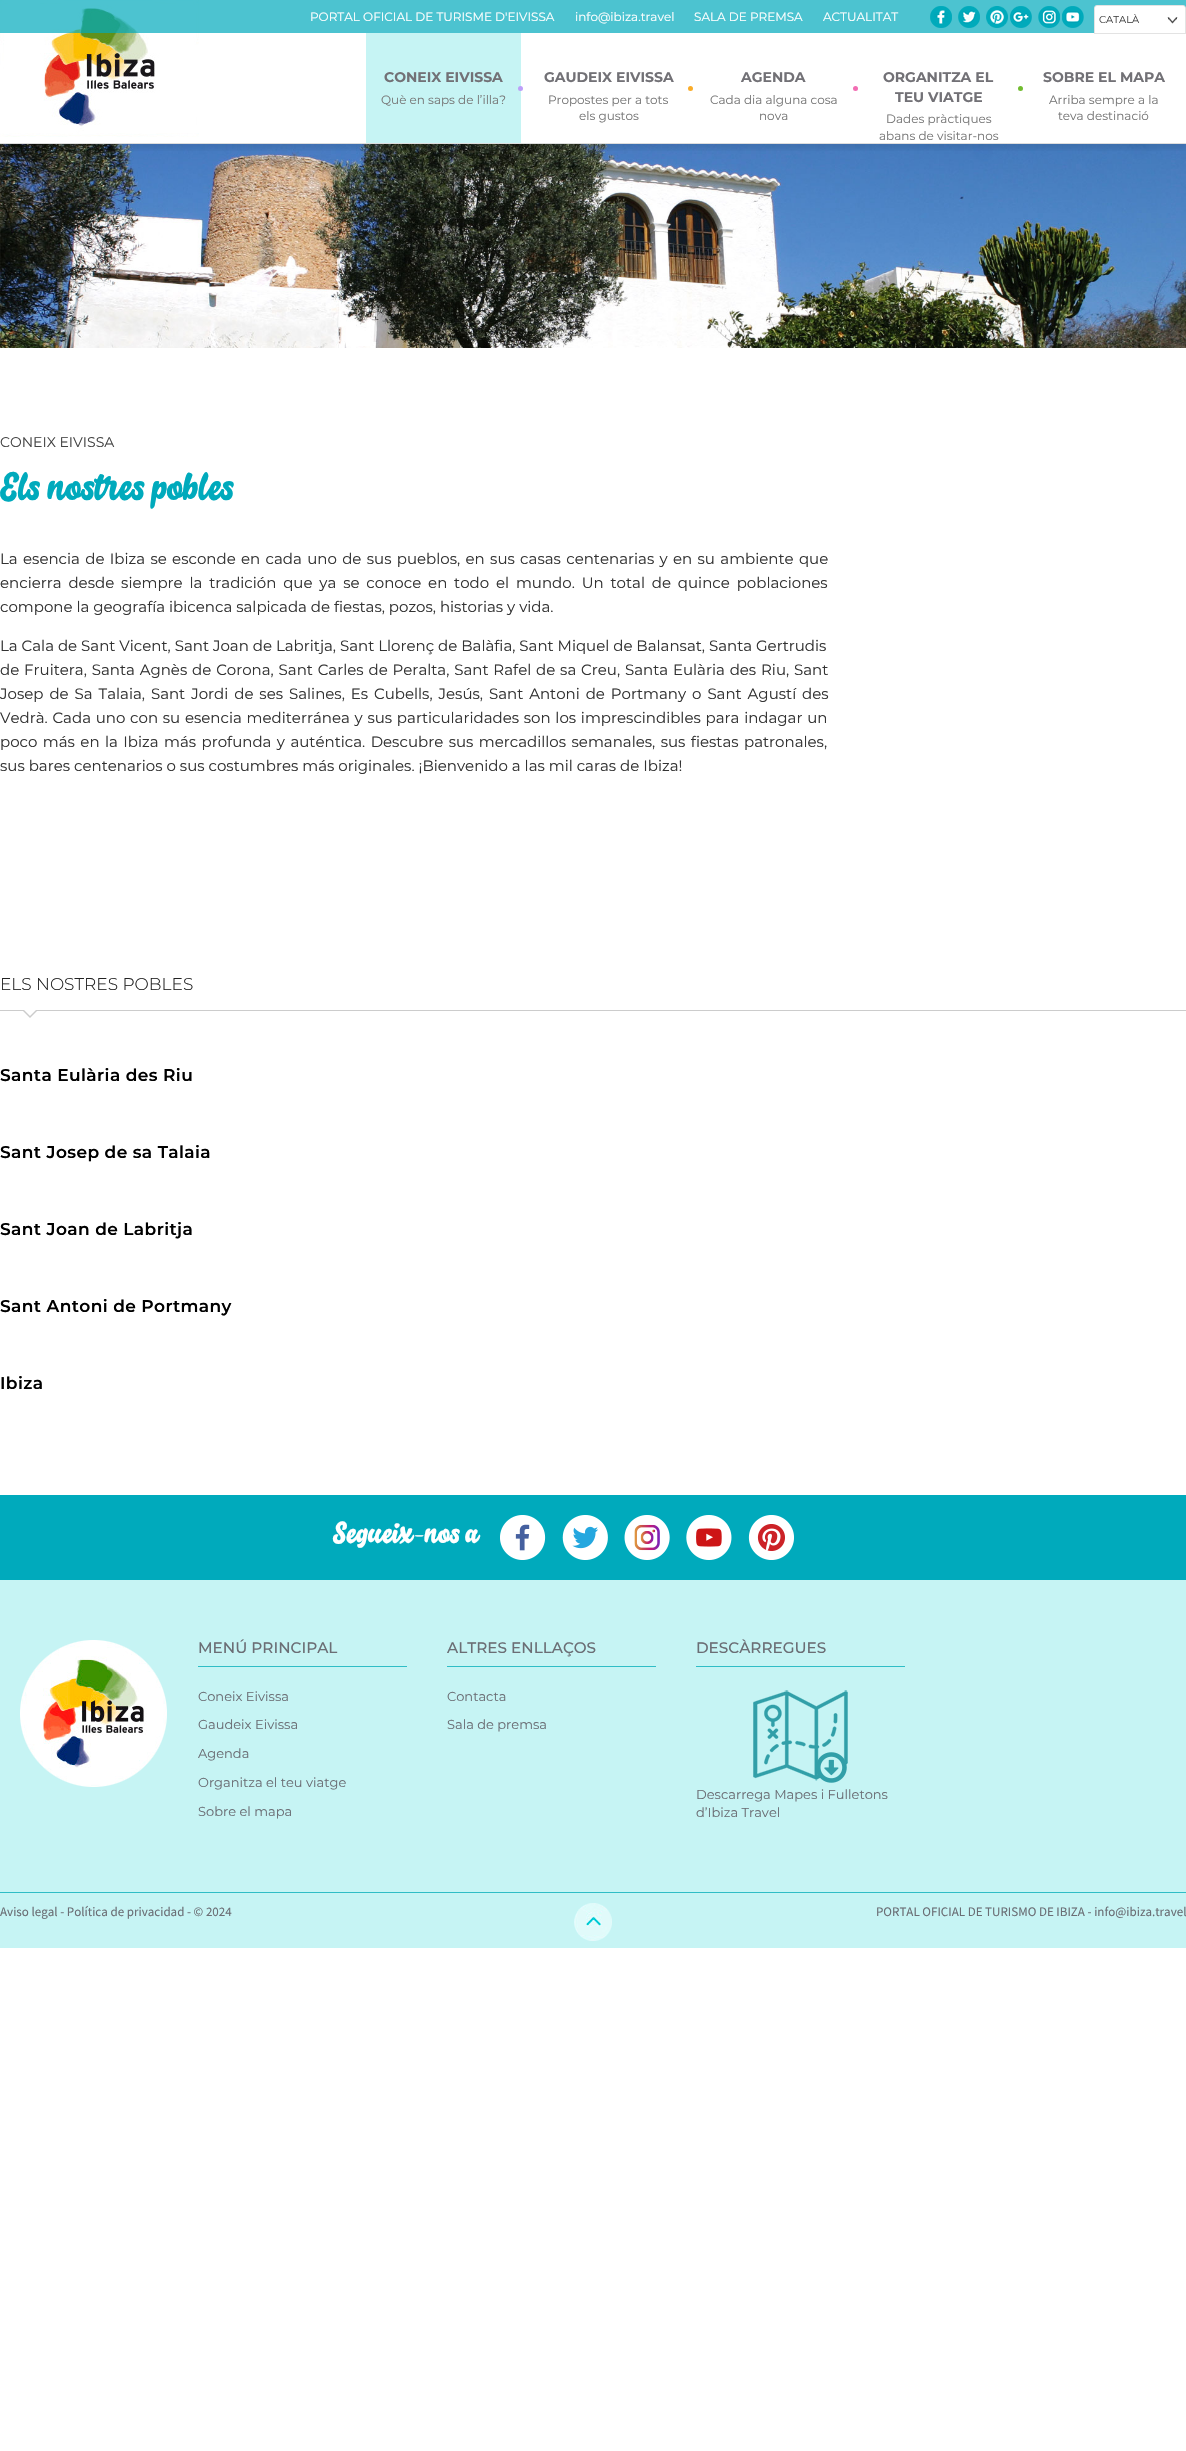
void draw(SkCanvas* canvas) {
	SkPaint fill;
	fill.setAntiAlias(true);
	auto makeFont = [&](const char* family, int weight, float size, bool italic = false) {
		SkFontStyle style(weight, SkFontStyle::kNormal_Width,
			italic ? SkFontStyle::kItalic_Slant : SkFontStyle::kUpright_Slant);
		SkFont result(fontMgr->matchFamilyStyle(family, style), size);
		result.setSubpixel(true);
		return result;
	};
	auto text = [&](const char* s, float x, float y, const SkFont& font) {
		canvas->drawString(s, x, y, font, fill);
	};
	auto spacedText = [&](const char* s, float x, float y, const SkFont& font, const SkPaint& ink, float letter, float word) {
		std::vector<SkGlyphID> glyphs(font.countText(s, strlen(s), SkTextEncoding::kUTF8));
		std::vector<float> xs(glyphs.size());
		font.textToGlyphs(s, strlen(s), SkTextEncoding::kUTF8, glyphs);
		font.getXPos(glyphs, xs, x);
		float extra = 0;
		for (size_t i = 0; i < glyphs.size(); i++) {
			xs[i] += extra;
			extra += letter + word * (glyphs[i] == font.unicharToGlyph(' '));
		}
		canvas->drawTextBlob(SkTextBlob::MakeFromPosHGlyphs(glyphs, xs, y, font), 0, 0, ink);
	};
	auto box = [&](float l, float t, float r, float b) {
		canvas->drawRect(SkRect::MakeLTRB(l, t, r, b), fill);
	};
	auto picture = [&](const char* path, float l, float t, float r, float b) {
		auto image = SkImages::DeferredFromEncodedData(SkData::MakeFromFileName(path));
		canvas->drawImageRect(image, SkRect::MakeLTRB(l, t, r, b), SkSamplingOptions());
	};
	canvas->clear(0xFFFFFFFF);
	picture("image8.png", 0, 144, 1186, 348);
	canvas->save();
	canvas->clipRect(SkRect::MakeLTRB(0, 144, 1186, 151));
	fill.setColor(0x14000000);
	fill.setMaskFilter(SkMaskFilter::MakeBlur(kNormal_SkBlurStyle, 2.5f));
	canvas->drawRect(SkRect::MakeLTRB(0, 38, 1186, 149), fill);
	fill.setMaskFilter(nullptr);
	canvas->restore();
	picture("image7.png", 0, 0, 199, 137);
	fill.setColor(0xB300AABC);
	box(0, 0, 1186, 33);
	picture("image0.png", 930, 6, 952, 28);
	picture("image1.png", 958, 6, 980, 28);
	picture("image2.png", 986, 6, 1008, 28);
	picture("image3.png", 1010, 6, 1032, 28);
	picture("image4.png", 1038, 6, 1060, 28);
	picture("image5.png", 1062, 6, 1084, 28);
	fill.setColor(0xFFFFFFFF);
	canvas->drawPath(SkPathBuilder().moveTo(1097, 5).lineTo(1183, 5).cubicTo(1184.5f, 5, 1186, 6.5f, 1186, 8).lineTo(1186, 34).lineTo(1094, 34).lineTo(1094, 8).cubicTo(1094, 6.5f, 1095.5f, 5, 1097, 5).close().detach(), fill);
	picture("image6.png", 1167, 17, 1178, 24);
	fill.setStyle(SkPaint::kStroke_Style);
	fill.setStrokeWidth(1);
	fill.setColor(0x1C000000);
	canvas->drawPath(SkPathBuilder().moveTo(1097, 5.5f).lineTo(1183, 5.5f).cubicTo(1184.5f, 5.5f, 1185.5f, 6.5f, 1185.5f, 8).lineTo(1185.5f, 33.5f).lineTo(1094.5f, 33.5f).lineTo(1094.5f, 8).cubicTo(1094.5f, 6.5f, 1095.5f, 5.5f, 1097, 5.5f).close().detach(), fill);
	fill.setStyle(SkPaint::kFill_Style);
	fill.setColor(0xFFDDDDDD);
	box(0, 143, 1186, 144);
	fill.setColor(0xFFC6F4F4);
	box(366, 33, 521, 143);
	fill.setColor(0xFFBD9FF9);
	canvas->drawCircle(520.5f, 88.5f, 2.5f, fill);
	fill.setColor(0xFFFAAC29);
	canvas->drawCircle(690.5f, 88.5f, 2.5f, fill);
	fill.setColor(0xFFF26DB3);
	canvas->drawCircle(855.5f, 88.5f, 2.5f, fill);
	fill.setColor(0xFF71BC2F);
	canvas->drawCircle(1020.5f, 88.5f, 2.5f, fill);
	fill.setColor(0xFFCCCCCC);
	box(0, 1010, 1186, 1011);
	canvas->drawPath(SkPathBuilder().moveTo(22, 1010).lineTo(38, 1010).lineTo(30, 1018).close().detach(), fill);
	fill.setColor(0xFFFFFFFF);
	canvas->drawPath(SkPathBuilder().moveTo(24, 1010).lineTo(36, 1010).lineTo(30, 1016).close().detach(), fill);
	fill.setColor(0xFF00AABC);
	box(0, 1495, 1186, 1580);
	picture("image9.png", 500, 1515, 546, 1560);
	picture("image10.png", 562, 1515, 608, 1560);
	picture("image11.png", 624, 1515, 670, 1560);
	picture("image12.png", 686, 1515, 732, 1560);
	picture("image13.png", 748, 1515, 794, 1560);
	fill.setColor(0xFFC6F4F4);
	box(0, 1580, 1186, 1948);
	picture("image14.png", 20, 1640, 167, 1787);
	fill.setColor(0xFF30BDC6);
	box(198, 1666, 407, 1667);
	box(447, 1666, 656, 1667);
	box(696, 1666, 905, 1667);
	picture("image15.png", 753, 1690, 848, 1783);
	box(0, 1892, 1186, 1893);
	picture("image16.png", 574, 1903, 612, 1941);
	auto font1 = makeFont("Montserrat", 400, 12);
	fill.setColor(0xFFFFFFFF);
	text("PORTAL OFICIAL DE TURISME D'EIVISSA", 310, 21, font1);
	text("info@ibiza.travel", 575, 21, font1);
	text("SALA DE PREMSA", 694, 21, font1);
	text("ACTUALITAT", 823, 21, font1);
	auto font2 = makeFont("Montserrat", 400, 10);
	fill.setColor(0xFF444444);
	text("CATALÀ", 1099, 23, font2);
	auto font3 = makeFont("Montserrat", 700, 14);
	fill.setColor(0xFF727176);
	text("CONEIX EIVISSA", 384, 82, font3);
	fill.setColor(0xFF777777);
	text("Què en saps de l’illa?", 381, 104, font1);
	fill.setColor(0xFF727176);
	text("GAUDEIX EIVISSA", 544, 82, font3);
	fill.setColor(0xFF777777);
	text("Propostes per a tots", 548, 104, font1);
	text("els gustos", 579, 120, font1);
	fill.setColor(0xFF727176);
	text("AGENDA", 741, 82, font3);
	fill.setColor(0xFF777777);
	text("Cada dia alguna cosa", 710, 104, font1);
	text("nova", 759, 120, font1);
	fill.setColor(0xFF727176);
	text("ORGANITZA EL", 883, 82, font3);
	text("TEU VIATGE", 895, 102, font3);
	fill.setColor(0xFF777777);
	text("Dades pràctiques", 886, 123, font1);
	text("abans de visitar-nos", 879, 140, font1);
	fill.setColor(0xFF727176);
	text("SOBRE EL MAPA", 1043, 82, font3);
	fill.setColor(0xFF777777);
	text("Arriba sempre a la", 1049, 104, font1);
	text("teva destinació", 1058, 120, font1);
	auto font4 = makeFont("Montserrat", 400, 14);
	fill.setColor(0xFF444444);
	text("CONEIX EIVISSA", 0, 447, font4);
	auto font5 = makeFont("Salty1", 400, 40);
	fill.setColor(0xFF00AABC);
	text("Els nostres pobles", 0, 500, font5);
	auto font6 = makeFont("Montserrat", 400, 15);
	fill.setColor(0xFF333333);
	spacedText("La esencia de Ibiza se esconde en cada uno de sus pueblos, en sus casas centenarias y en su ambiente que", 0, 564, font6, fill, 0, 1.4f);
	spacedText("encierra desde siempre la tradición que ya se conoce en todo el mundo. Un total de quince poblaciones", 0, 588, font6, fill, 0, 2.9f);
	text("compone la geografía ibicenca salpicada de fiestas, pozos, historias y vida.", 0, 612, font6);
	text("La Cala de Sant Vicent, Sant Joan de Labritja, Sant Llorenç de Balàfia, Sant Miquel de Balansat, Santa Gertrudis", 0, 651, font6);
	spacedText("de Fruitera, Santa Agnès de Corona, Sant Carles de Peralta, Sant Rafel de sa Creu, Santa Eulària des Riu, Sant", 0, 675, font6, fill, 0, 0.9f);
	spacedText("Josep de Sa Talaia, Sant Jordi de ses Salines, Es Cubells, Jesús, Sant Antoni de Portmany o Sant Agustí des", 0, 699, font6, fill, 0, 2);
	spacedText("Vedrà. Cada uno con su esencia mediterránea y sus particularidades son los imprescindibles para indagar un", 0, 723, font6, fill, 0, 0.8f);
	spacedText("poco más en la Ibiza más profunda y auténtica. Descubre sus mercadillos semanales, sus fiestas patronales,", 0, 747, font6, fill, 0, 1.5f);
	text("sus bares centenarios o sus costumbres más originales. ¡Bienvenido a las mil caras de Ibiza!", 0, 771, font6);
	auto font7 = makeFont("Montserrat", 300, 17);
	fill.setColor(0xFF222222);
	text("ELS NOSTRES POBLES", 0, 990, font7);
	auto font8 = makeFont("Montserrat", 600, 17);
	fill.setColor(0xFF000000);
	spacedText("Santa Eulària des Riu", 0, 1081, font8, fill, 0.4f, 0);
	spacedText("Sant Josep de sa Talaia", 0, 1158, font8, fill, 0.4f, 0);
	spacedText("Sant Joan de Labritja", 0, 1235, font8, fill, 0.4f, 0);
	spacedText("Sant Antoni de Portmany", 0, 1312, font8, fill, 0.4f, 0);
	spacedText("Ibiza", 0, 1389, font8, fill, 0.4f, 0);
	auto font9 = makeFont("Salty1", 400, 30);
	fill.setColor(0xFFFFFFFF);
	text("Segueix-nos a", 333, 1543, font9);
	auto font10 = makeFont("Montserrat", 500, 15.25f);
	fill.setColor(0xFF6B6E75);
	text("MENÚ PRINCIPAL", 198, 1653, font10);
	auto font11 = makeFont("Montserrat", 400, 13);
	text("Coneix Eivissa", 198, 1701, font11);
	text("Gaudeix Eivissa", 198, 1729, font11);
	text("Agenda", 198, 1758, font11);
	text("Organitza el teu viatge", 198, 1787, font11);
	text("Sobre el mapa", 198, 1816, font11);
	text("ALTRES ENLLAÇOS", 447, 1653, font10);
	text("Contacta", 447, 1701, font11);
	text("Sala de premsa", 447, 1729, font11);
	text("DESCÀRREGUES", 696, 1653, font10);
	text("Descarrega Mapes i Fulletons", 696, 1799, font11);
	text("d’Ibiza Travel", 696, 1817, font11);
	auto font12 = makeFont("Source Sans Pro", 400, 13);
	text("Aviso legal - Política de privacidad - © 2024", 0, 1916, font12);
	text("PORTAL OFICIAL DE TURISMO DE IBIZA - info@ibiza.travel", 876, 1916, font12);
}
